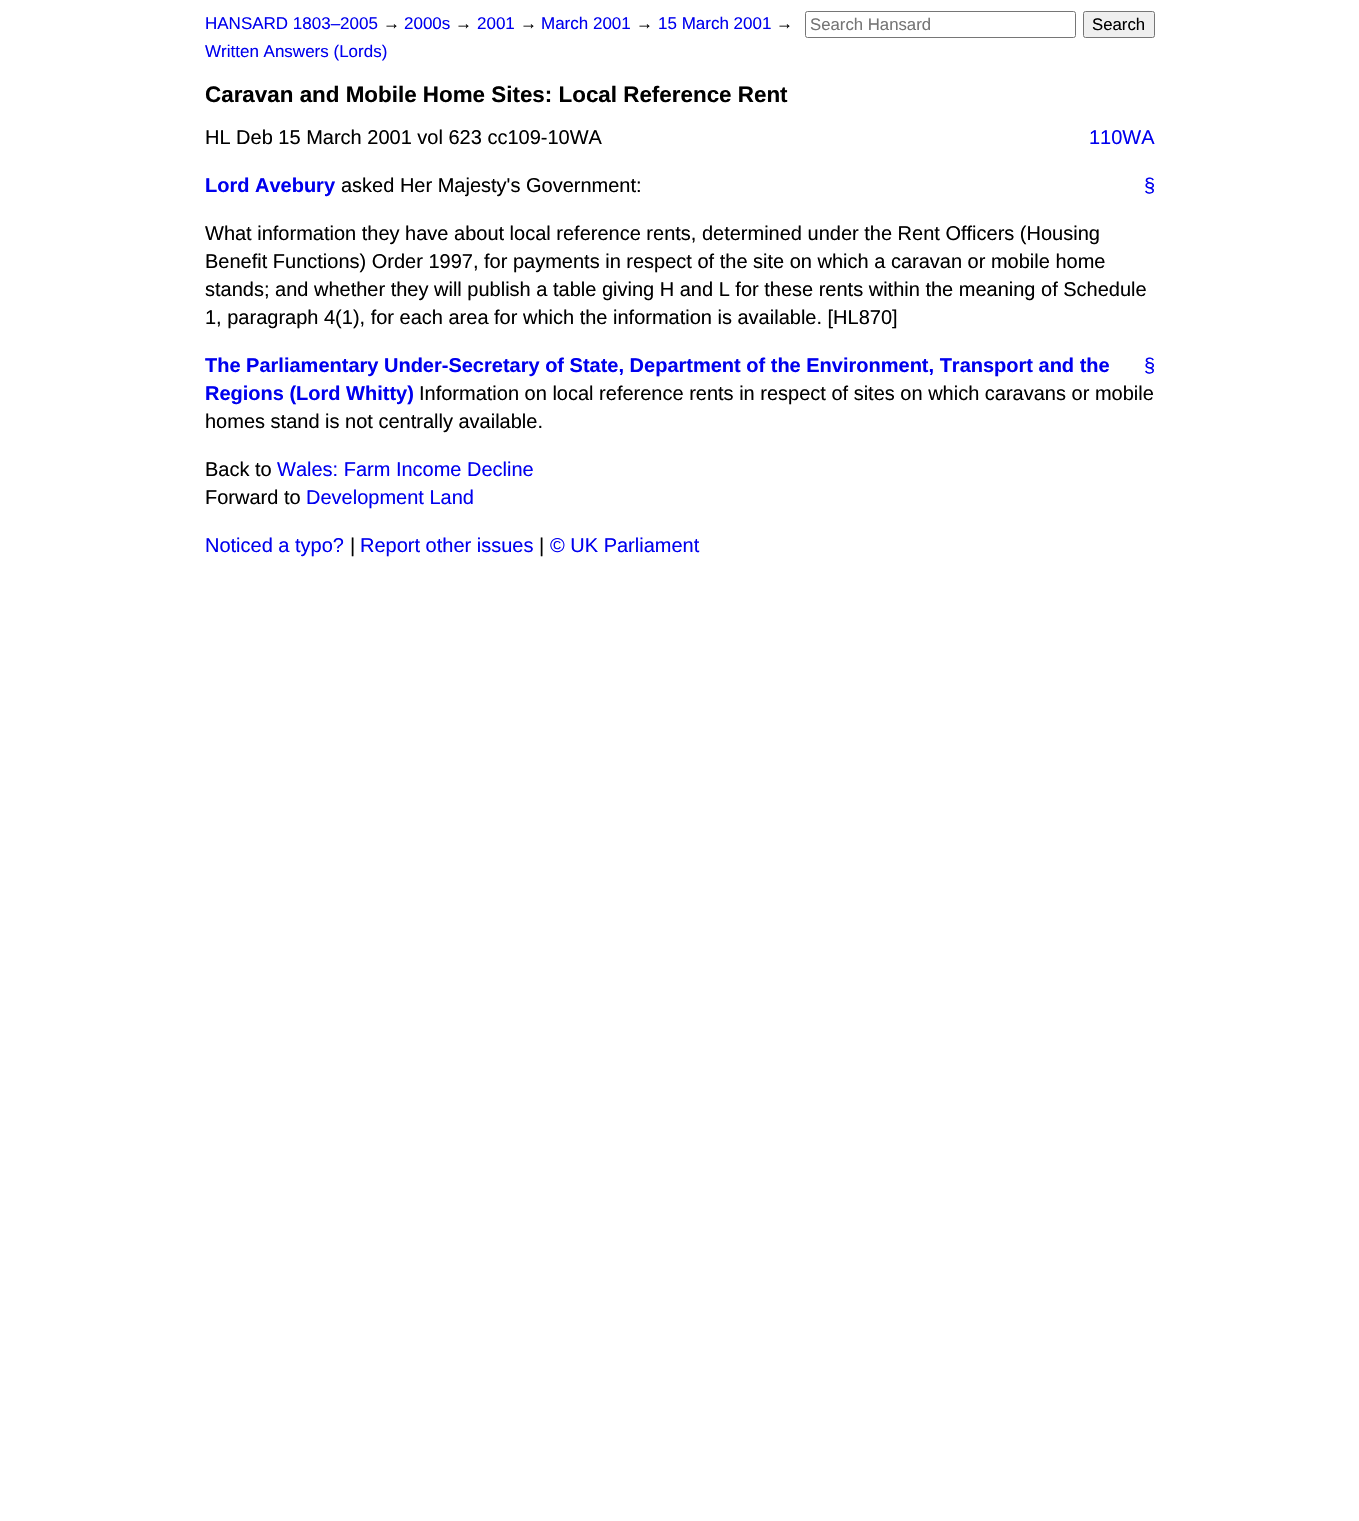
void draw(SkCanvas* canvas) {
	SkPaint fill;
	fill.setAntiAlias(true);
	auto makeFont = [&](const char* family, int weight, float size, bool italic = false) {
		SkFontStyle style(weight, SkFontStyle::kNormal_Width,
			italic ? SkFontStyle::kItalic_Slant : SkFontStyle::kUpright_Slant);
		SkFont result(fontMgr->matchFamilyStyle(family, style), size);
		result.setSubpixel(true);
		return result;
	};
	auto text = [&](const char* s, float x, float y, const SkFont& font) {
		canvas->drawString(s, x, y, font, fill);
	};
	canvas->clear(0xFFFFFFFF);
	fill.setStyle(SkPaint::kStroke_Style);
	fill.setStrokeWidth(1);
	fill.setColor(0xFF767676);
	canvas->drawRoundRect(SkRect::MakeLTRB(805.5f, 11.5f, 1075.5f, 37.5f), 2, 2, fill);
	fill.setStyle(SkPaint::kFill_Style);
	fill.setColor(0xFFEFEFEF);
	canvas->drawRoundRect(SkRect::MakeLTRB(1083.5f, 11.5f, 1154.5f, 37.5f), 2, 2, fill);
	fill.setStyle(SkPaint::kStroke_Style);
	fill.setColor(0xFF767676);
	canvas->drawRoundRect(SkRect::MakeLTRB(1083.5f, 11.5f, 1154.5f, 37.5f), 2, 2, fill);
	auto font1 = makeFont("Liberation Sans", 400, 17);
	fill.setStyle(SkPaint::kFill_Style);
	fill.setColor(0xFF0000EE);
	text("HANSARD 1803–2005", 205, 29, font1);
	fill.setColor(0xFF000000);
	text("→", 383, 29, font1);
	fill.setColor(0xFF0000EE);
	text("2000s", 404, 29, font1);
	fill.setColor(0xFF000000);
	text("→", 455, 29, font1);
	fill.setColor(0xFF0000EE);
	text("2001", 477, 29, font1);
	fill.setColor(0xFF000000);
	text("→", 520, 29, font1);
	fill.setColor(0xFF0000EE);
	text("March 2001", 541, 29, font1);
	fill.setColor(0xFF000000);
	text("→", 636, 29, font1);
	fill.setColor(0xFF0000EE);
	text("15 March 2001", 658, 29, font1);
	fill.setColor(0xFF000000);
	text("→", 776, 29, font1);
	fill.setColor(0xFF0000EE);
	text("Written Answers (Lords)", 205, 57, font1);
	auto font2 = makeFont("Liberation Sans", 400, 16.75f);
	fill.setColor(0xFF757575);
	text("Search Hansard", 810, 30, font2);
	fill.setColor(0xFF000000);
	text("Search", 1092, 30, font2);
	auto font3 = makeFont("Liberation Sans", 700, 22.4f);
	text("Caravan and Mobile Home Sites: Local Reference Rent", 205, 102, font3);
	auto font4 = makeFont("Liberation Sans", 400, 20);
	text("HL Deb 15 March 2001 vol 623 cc109-10WA", 205, 144, font4);
	fill.setColor(0xFF0000EE);
	text("110WA", 1089, 144, font4);
	auto font5 = makeFont("Liberation Sans", 700, 20);
	text("Lord Avebury", 205, 192, font5);
	fill.setColor(0xFF000000);
	text("asked Her Majesty's Government:", 341, 192, font4);
	fill.setColor(0xFF0000EE);
	text("§", 1144, 192, font4);
	fill.setColor(0xFF000000);
	text("What information they have about local reference rents, determined under the Rent Officers (Housing", 205, 240, font4);
	text("Benefit Functions) Order 1997, for payments in respect of the site on which a caravan or mobile home", 205, 268, font4);
	text("stands; and whether they will publish a table giving H and L for these rents within the meaning of Schedule", 205, 296, font4);
	text("1, paragraph 4(1), for each area for which the information is available. [HL870]", 205, 324, font4);
	fill.setColor(0xFF0000EE);
	text("The Parliamentary Under-Secretary of State, Department of the Environment, Transport and the", 205, 372, font5);
	text("§", 1144, 372, font4);
	text("Regions (Lord Whitty)", 205, 400, font5);
	fill.setColor(0xFF000000);
	text("Information on local reference rents in respect of sites on which caravans or mobile", 419, 400, font4);
	text("homes stand is not centrally available.", 205, 428, font4);
	text("Back to", 205, 476, font4);
	fill.setColor(0xFF0000EE);
	text("Wales: Farm Income Decline", 277, 476, font4);
	fill.setColor(0xFF000000);
	text("Forward to", 205, 504, font4);
	fill.setColor(0xFF0000EE);
	text("Development Land", 306, 504, font4);
	text("Noticed a typo?", 205, 552, font4);
	fill.setColor(0xFF000000);
	text("|", 350, 552, font4);
	fill.setColor(0xFF0000EE);
	text("Report other issues", 360, 552, font4);
	fill.setColor(0xFF000000);
	text("|", 539, 552, font4);
	fill.setColor(0xFF0000EE);
	text("© UK Parliament", 550, 552, font4);
}
